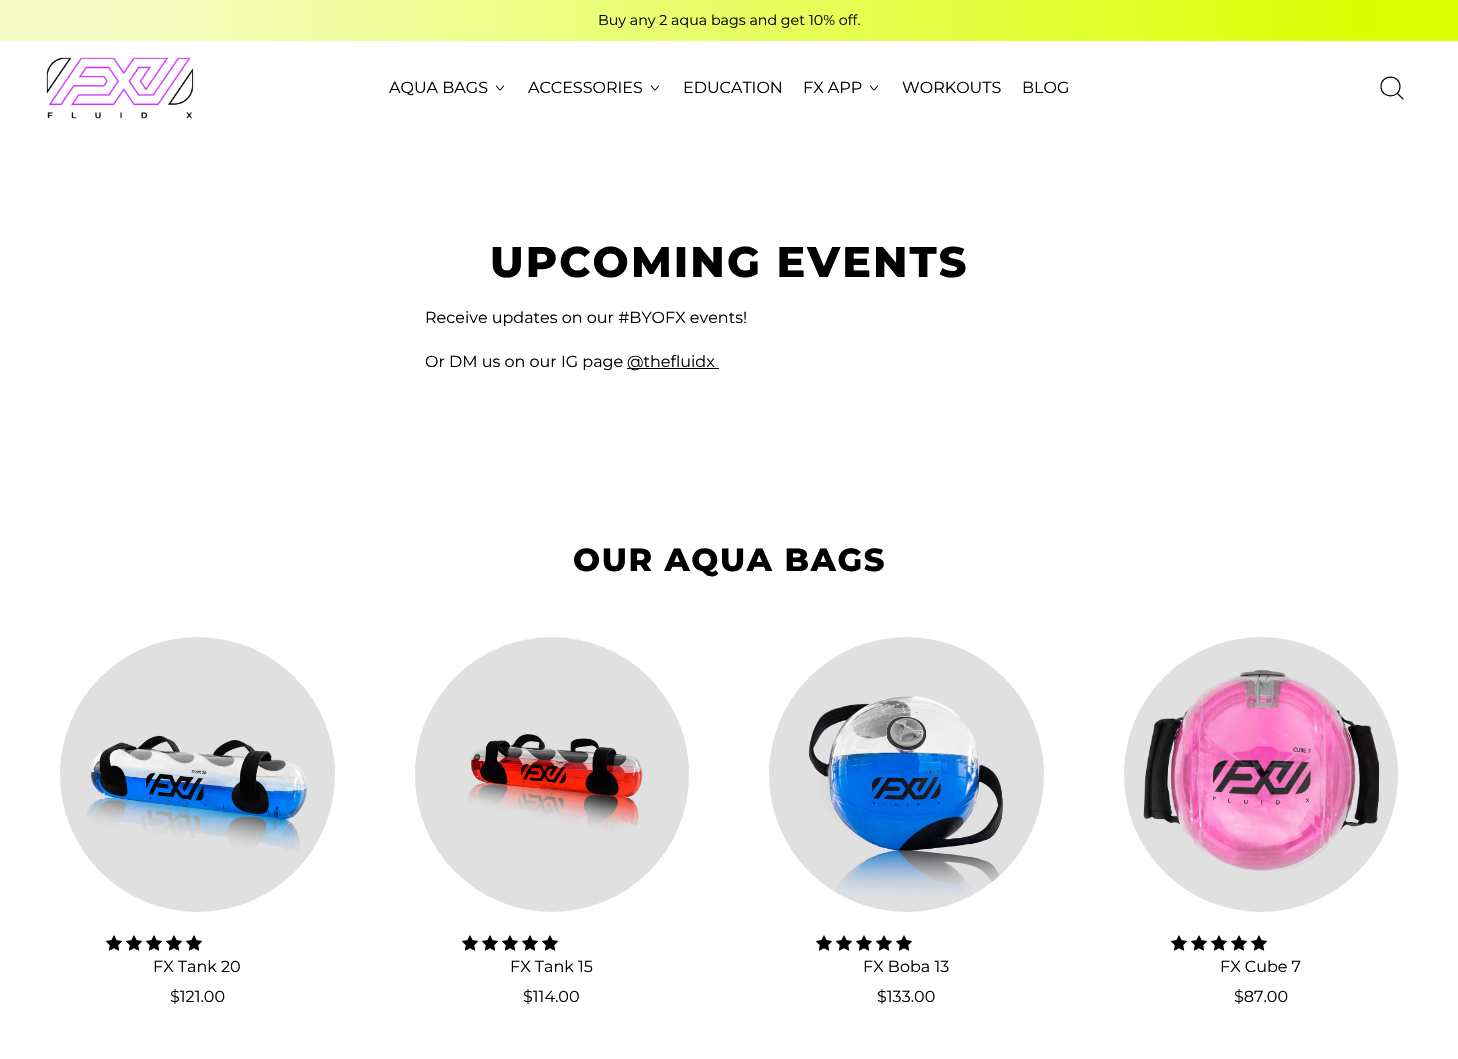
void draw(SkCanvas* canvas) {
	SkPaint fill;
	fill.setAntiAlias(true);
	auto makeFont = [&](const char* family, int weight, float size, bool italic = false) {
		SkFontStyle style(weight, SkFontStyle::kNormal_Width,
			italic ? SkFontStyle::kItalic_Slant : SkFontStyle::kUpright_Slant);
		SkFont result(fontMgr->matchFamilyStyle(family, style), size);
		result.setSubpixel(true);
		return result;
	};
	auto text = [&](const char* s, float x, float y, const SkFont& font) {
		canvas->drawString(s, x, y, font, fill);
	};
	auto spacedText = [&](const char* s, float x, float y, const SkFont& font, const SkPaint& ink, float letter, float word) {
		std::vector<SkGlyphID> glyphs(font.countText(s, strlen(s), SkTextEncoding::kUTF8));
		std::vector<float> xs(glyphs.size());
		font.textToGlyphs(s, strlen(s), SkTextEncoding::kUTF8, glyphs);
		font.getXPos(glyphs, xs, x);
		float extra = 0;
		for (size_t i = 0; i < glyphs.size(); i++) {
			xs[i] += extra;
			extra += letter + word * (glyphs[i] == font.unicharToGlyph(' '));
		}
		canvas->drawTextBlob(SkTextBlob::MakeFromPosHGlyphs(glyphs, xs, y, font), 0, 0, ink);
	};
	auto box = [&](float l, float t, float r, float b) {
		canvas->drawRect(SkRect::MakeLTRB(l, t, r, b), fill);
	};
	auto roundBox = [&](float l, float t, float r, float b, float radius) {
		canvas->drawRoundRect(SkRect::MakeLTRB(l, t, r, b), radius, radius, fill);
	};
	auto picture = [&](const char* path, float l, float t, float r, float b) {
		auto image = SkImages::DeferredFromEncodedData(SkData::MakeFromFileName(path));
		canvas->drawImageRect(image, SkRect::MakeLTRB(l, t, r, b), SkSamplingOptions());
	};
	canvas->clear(0xFFFFFFFF);
	{
		const SkColor colors[] = {0xFFF6FDC7, 0xFFDAFF01};
		const float stops[] = {0.07f, 0.94f};
		const SkPoint ends[] = {{-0.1f, 33}, {1458, 7.8f}};
		fill.setShader(SkGradientShader::MakeLinear(ends, colors, stops, 2, SkTileMode::kClamp));
		fill.setAlpha(255);
	}
	box(0, 0, 1458, 41);
	picture("image0.png", 46, 57, 194, 119);
	fill.setStyle(SkPaint::kStroke_Style);
	fill.setStrokeWidth(1.1f);
	fill.setStrokeCap(SkPaint::kRound_Cap);
	fill.setStrokeJoin(SkPaint::kRound_Join);
	fill.setShader(nullptr);
	fill.setColor(0xFF000000);
	canvas->drawPath(SkPathBuilder().moveTo(496.5f, 86).cubicTo(501, 91.5f, 499, 91.5f, 503.5f, 86).detach(), fill);
	canvas->drawPath(SkPathBuilder().moveTo(651.5f, 86).cubicTo(656, 91.5f, 654, 91.5f, 658.5f, 86).detach(), fill);
	canvas->drawPath(SkPathBuilder().moveTo(870.5f, 86).cubicTo(875, 91.5f, 873, 91.5f, 877.5f, 86).detach(), fill);
	canvas->drawPath(SkPathBuilder().moveTo(1381, 86.5f).cubicTo(1381, 99, 1400, 99, 1400, 86.5f).cubicTo(1400, 74, 1381, 74, 1381, 86.5f).close().moveTo(1403, 99).lineTo(1397.5f, 93.5f).detach(), fill);
	picture("image1.png", 385, 199, 1073, 414);
	fill.setStyle(SkPaint::kFill_Style);
	fill.setColor(0xFFFFFFFF);
	roundBox(385, 199, 1073, 414, 32);
	fill.setColor(0xFF000000);
	box(627, 368, 719, 369);
	picture("image2.png", 40, 617, 355, 649);
	fill.setColor(0xFFFFFFFF);
	roundBox(40, 617, 355, 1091, 32);
	picture("image3.png", 60, 637, 335, 912);
	picture("image4.png", 106, 935, 122, 951);
	picture("image4.png", 126, 935, 142, 951);
	picture("image4.png", 146, 935, 162, 951);
	picture("image4.png", 166, 935, 182, 951);
	picture("image4.png", 186, 935, 202, 951);
	picture("image5.png", 395, 617, 709, 649);
	roundBox(395, 617, 709, 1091, 32);
	picture("image6.png", 415, 637, 689, 912);
	picture("image4.png", 462, 935, 478, 951);
	picture("image4.png", 482, 935, 498, 951);
	picture("image4.png", 502, 935, 518, 951);
	picture("image4.png", 522, 935, 538, 951);
	picture("image4.png", 542, 935, 558, 951);
	picture("image7.png", 749, 617, 1064, 649);
	roundBox(749, 617, 1064, 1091, 32);
	picture("image8.png", 769, 637, 1044, 912);
	picture("image4.png", 816, 935, 832, 951);
	picture("image4.png", 836, 935, 852, 951);
	picture("image4.png", 856, 935, 872, 951);
	picture("image4.png", 876, 935, 892, 951);
	picture("image4.png", 896, 935, 912, 951);
	picture("image9.png", 1104, 617, 1418, 649);
	roundBox(1104, 617, 1418, 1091, 32);
	picture("image10.png", 1124, 637, 1398, 912);
	picture("image4.png", 1171, 935, 1187, 951);
	picture("image4.png", 1191, 935, 1207, 951);
	picture("image4.png", 1211, 935, 1227, 951);
	picture("image4.png", 1231, 935, 1247, 951);
	picture("image4.png", 1251, 935, 1267, 951);
	auto font1 = makeFont("Montserrat", 400, 14.25f);
	fill.setColor(0xFF000000);
	text("Buy any 2 aqua bags and get 10% off.", 598, 25, font1);
	auto font2 = makeFont("Montserrat", 400, 16);
	text("AQUA BAGS", 389, 93, font2);
	text("ACCESSORIES", 528, 93, font2);
	text("EDUCATION", 683, 93, font2);
	text("FX APP", 803, 93, font2);
	text("WORKOUTS", 902, 93, font2);
	text("BLOG", 1022, 93, font2);
	auto font3 = makeFont("Montserrat", 800, 42.75f);
	spacedText("UPCOMING EVENTS", 490, 277, font3, fill, 2.1f, 0);
	text("Receive updates on our #BYOFX events!", 425, 323, font2);
	text("Or DM us on our IG page", 425, 367, font2);
	text("@thefluidx", 627, 367, font2);
	auto font4 = makeFont("Montserrat", 800, 32);
	spacedText("OUR AQUA BAGS", 573, 571, font4, fill, 1.6f, 0);
	text("FX Tank 20", 153, 972, font2);
	text("$121.00", 170, 1002, font2);
	text("FX Tank 15", 510, 972, font2);
	text("$114.00", 523, 1002, font2);
	text("FX Boba 13", 863, 972, font2);
	text("$133.00", 877, 1002, font2);
	text("FX Cube 7", 1220, 972, font2);
	text("$87.00", 1234, 1002, font2);
}
